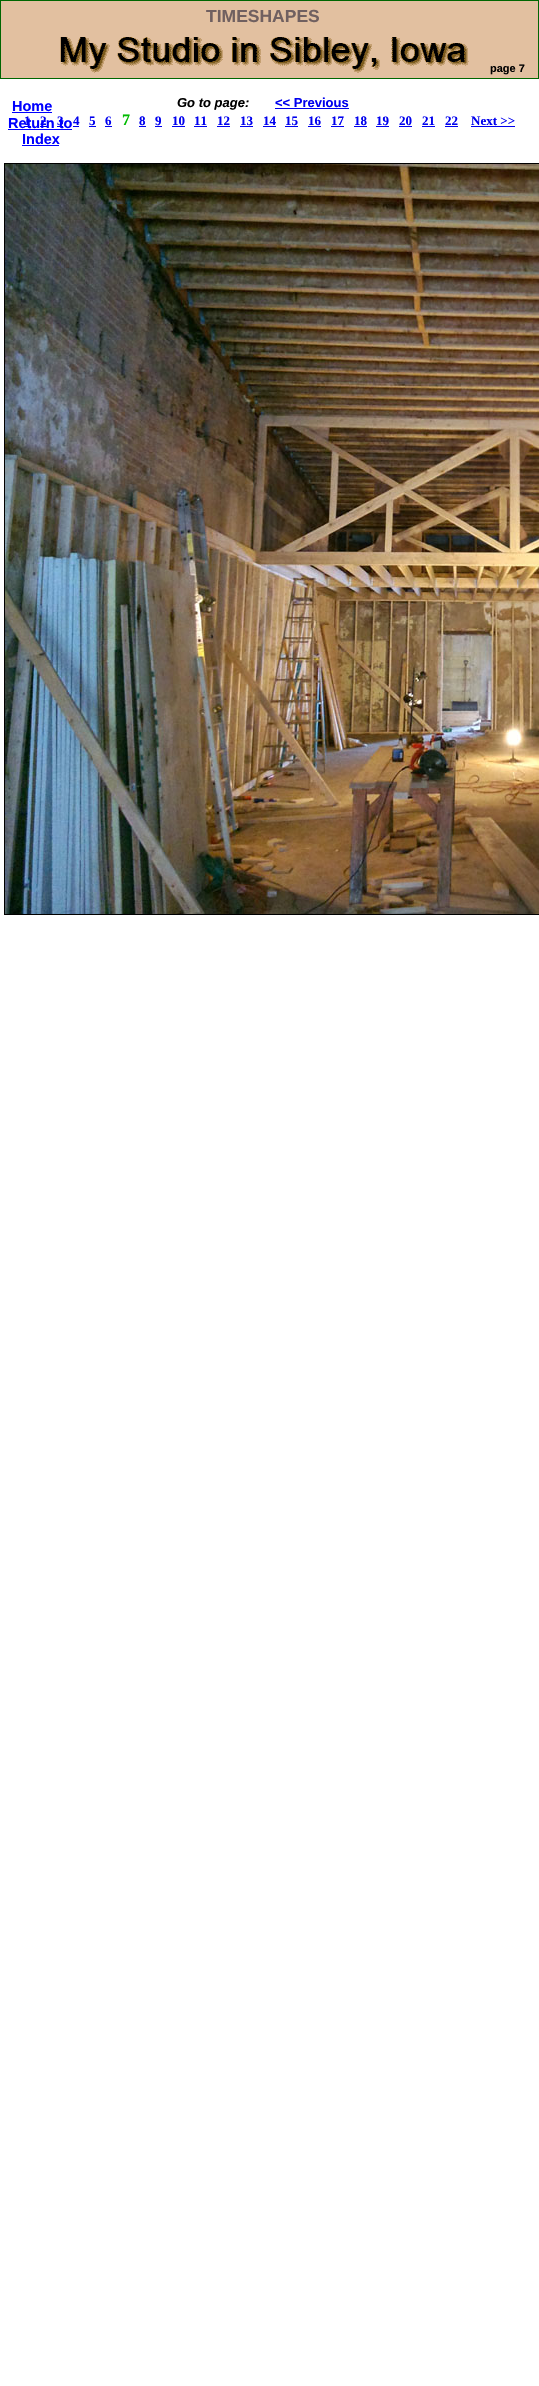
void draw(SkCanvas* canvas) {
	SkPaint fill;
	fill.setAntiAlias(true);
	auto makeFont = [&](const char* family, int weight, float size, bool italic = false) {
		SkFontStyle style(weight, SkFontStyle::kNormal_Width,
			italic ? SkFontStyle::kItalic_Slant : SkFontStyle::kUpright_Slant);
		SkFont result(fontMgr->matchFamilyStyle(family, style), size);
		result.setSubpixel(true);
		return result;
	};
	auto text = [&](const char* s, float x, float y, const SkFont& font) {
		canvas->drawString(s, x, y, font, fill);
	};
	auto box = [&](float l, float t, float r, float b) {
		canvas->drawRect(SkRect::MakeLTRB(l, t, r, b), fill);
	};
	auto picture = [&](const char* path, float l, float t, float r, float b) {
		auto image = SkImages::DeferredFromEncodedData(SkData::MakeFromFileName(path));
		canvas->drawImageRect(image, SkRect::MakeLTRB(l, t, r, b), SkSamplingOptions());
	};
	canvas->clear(0xFFFFFFFF);
	fill.setColor(0xFFE2C0A0);
	box(1, 1, 538, 78);
	fill.setColor(0xFF006600);
	box(0, 0, 539, 1);
	box(538, 0, 539, 79);
	box(0, 78, 539, 79);
	box(0, 0, 1, 79);
	picture("image0.png", 60, 37, 469, 73);
	fill.setColor(0xFF0000EE);
	box(275, 108, 349, 109);
	box(24, 126, 31, 127);
	box(40, 126, 47, 127);
	box(57, 126, 63, 127);
	box(73, 126, 79, 127);
	box(89, 126, 96, 127);
	box(105, 126, 112, 127);
	box(139, 126, 146, 127);
	box(155, 126, 162, 127);
	box(172, 126, 185, 127);
	box(194, 126, 207, 127);
	box(217, 126, 230, 127);
	box(240, 126, 253, 127);
	box(263, 126, 276, 127);
	box(285, 126, 298, 127);
	box(308, 126, 321, 127);
	box(331, 126, 344, 127);
	box(354, 126, 367, 127);
	box(376, 126, 389, 127);
	box(399, 126, 412, 127);
	box(422, 126, 435, 127);
	box(445, 126, 458, 127);
	box(471, 126, 515, 127);
	fill.setColor(0xFF0000FF);
	box(12, 112, 52, 113);
	box(8, 129, 72, 130);
	box(22, 145, 59, 146);
	fill.setStyle(SkPaint::kStroke_Style);
	fill.setStrokeWidth(1);
	fill.setColor(0xFF000000);
	canvas->drawRect(SkRect::MakeLTRB(4.5f, 163.5f, 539.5f, 914.5f), fill);
	picture("image1.png", 5, 164, 539, 914);
	auto font1 = makeFont("Liberation Sans", 700, 17.5f);
	fill.setStyle(SkPaint::kFill_Style);
	fill.setColor(0xFF706060);
	text("TIMESHAPES", 206, 22, font1);
	auto font2 = makeFont("Liberation Sans", 700, 11);
	fill.setColor(0xFF000000);
	text("page 7", 490, 72, font2);
	auto font3 = makeFont("Liberation Sans", 700, 13, true);
	text("Go to page:", 177, 107, font3);
	auto font4 = makeFont("Liberation Sans", 700, 13);
	fill.setColor(0xFF0000EE);
	text("<< Previous", 275, 107, font4);
	auto font5 = makeFont("Liberation Serif", 700, 13);
	text("1", 24, 125, font5);
	text("2", 40, 125, font5);
	text("3", 57, 125, font5);
	text("4", 73, 125, font5);
	text("5", 89, 125, font5);
	text("6", 105, 125, font5);
	auto font6 = makeFont("Liberation Serif", 700, 16);
	fill.setColor(0xFF00BB00);
	text("7", 122, 125, font6);
	fill.setColor(0xFF0000EE);
	text("8", 139, 125, font5);
	text("9", 155, 125, font5);
	text("10", 172, 125, font5);
	text("11", 194, 125, font5);
	text("12", 217, 125, font5);
	text("13", 240, 125, font5);
	text("14", 263, 125, font5);
	text("15", 285, 125, font5);
	text("16", 308, 125, font5);
	text("17", 331, 125, font5);
	text("18", 354, 125, font5);
	text("19", 376, 125, font5);
	text("20", 399, 125, font5);
	text("21", 422, 125, font5);
	text("22", 445, 125, font5);
	text("Next >>", 471, 125, font5);
	auto font7 = makeFont("Liberation Sans", 700, 14.5f);
	fill.setColor(0xFF0000FF);
	text("Home", 12, 111, font7);
	text("Return to", 8, 128, font7);
	text("Index", 22, 144, font7);
}
